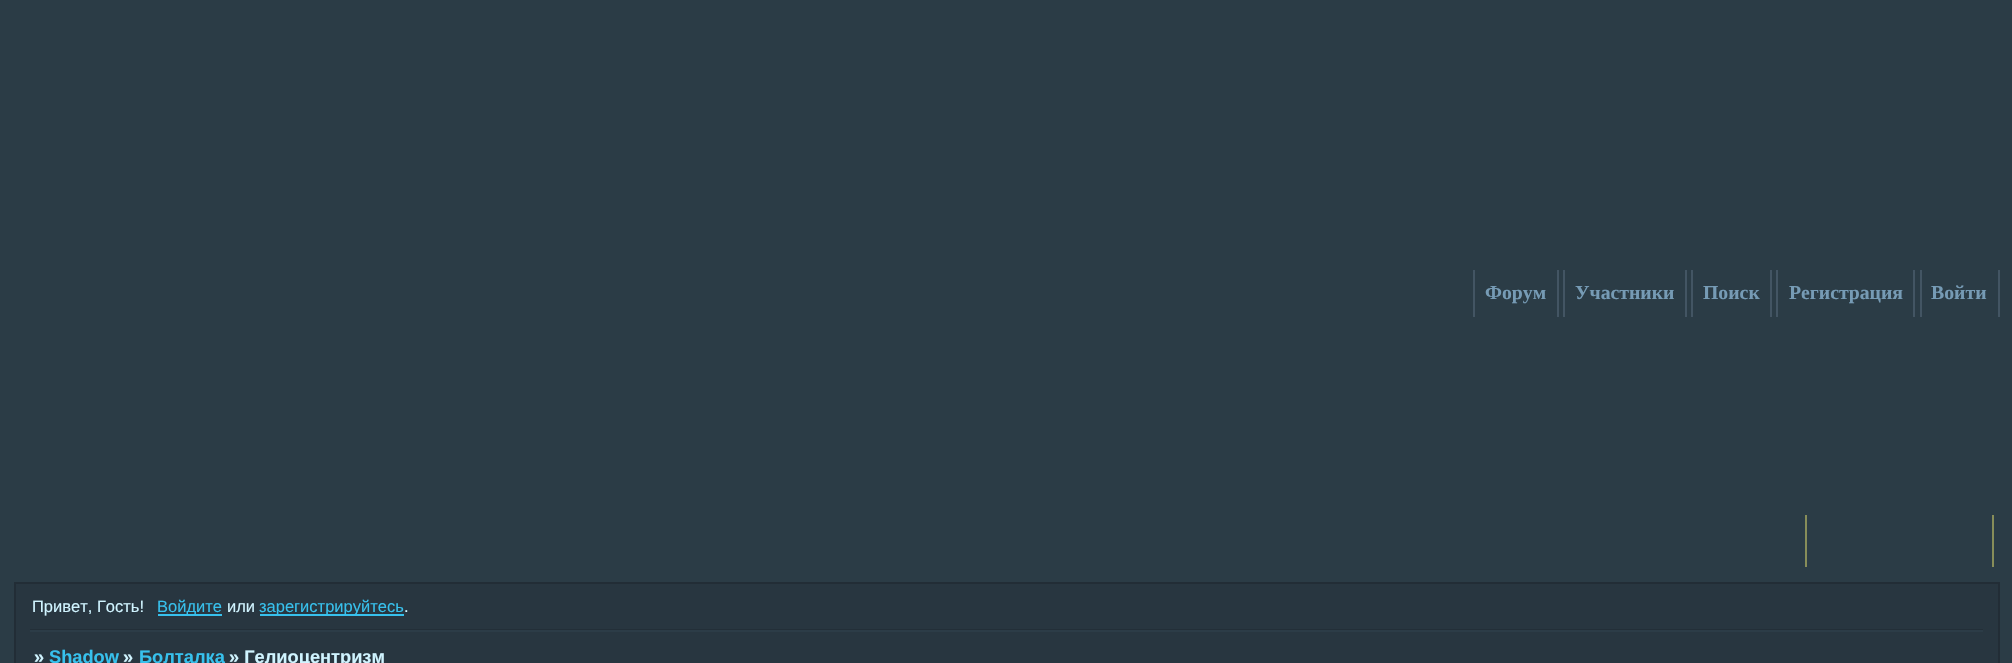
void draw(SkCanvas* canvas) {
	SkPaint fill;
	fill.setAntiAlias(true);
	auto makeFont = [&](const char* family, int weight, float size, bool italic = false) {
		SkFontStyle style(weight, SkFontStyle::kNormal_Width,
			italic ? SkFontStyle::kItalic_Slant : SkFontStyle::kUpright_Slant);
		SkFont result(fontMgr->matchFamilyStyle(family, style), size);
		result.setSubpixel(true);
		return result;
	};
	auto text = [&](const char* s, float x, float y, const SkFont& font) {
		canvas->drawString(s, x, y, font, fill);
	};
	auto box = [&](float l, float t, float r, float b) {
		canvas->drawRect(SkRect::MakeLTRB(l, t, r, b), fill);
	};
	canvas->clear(0xFF2B3C46);
	fill.setColor(0xFF435563);
	box(1557, 270, 1559, 317);
	box(1473, 270, 1475, 317);
	box(1685, 270, 1687, 317);
	box(1563, 270, 1565, 317);
	box(1770, 270, 1772, 317);
	box(1691, 270, 1693, 317);
	box(1913, 270, 1915, 317);
	box(1776, 270, 1778, 317);
	box(1998, 270, 2000, 317);
	box(1920, 270, 1922, 317);
	fill.setColor(0xFF878D59);
	box(1805, 515, 1807, 567);
	box(1992, 515, 1994, 567);
	fill.setColor(0xFF283640);
	box(16, 584, 1998, 663);
	fill.setColor(0xFF222D36);
	box(14, 582, 2000, 584);
	box(1998, 582, 2000, 663);
	box(14, 582, 16, 663);
	fill.setColor(0xFF37C1ED);
	box(158, 614, 222, 616);
	box(260, 614, 404, 616);
	fill.setColor(0xFF232F38);
	box(30, 629, 1983, 630);
	fill.setColor(0xFF2C3C47);
	box(30, 630, 1983, 632);
	auto font1 = makeFont("Liberation Serif", 700, 19.75f);
	fill.setColor(0xFF769BB5);
	text("Форум", 1485, 299, font1);
	text("Участники", 1575, 299, font1);
	text("Поиск", 1703, 299, font1);
	text("Регистрация", 1789, 299, font1);
	text("Войти", 1931, 299, font1);
	auto font2 = makeFont("Liberation Sans", 400, 16.5f);
	fill.setColor(0xFFD0F4FF);
	text("Привет, Гость!", 32, 612, font2);
	fill.setColor(0xFF37C1ED);
	text("Войдите", 157, 612, font2);
	fill.setColor(0xFFD0F4FF);
	text("или", 227, 612, font2);
	fill.setColor(0xFF37C1ED);
	text("зарегистрируйтесь", 259, 612, font2);
	fill.setColor(0xFFD0F4FF);
	text(".", 404, 612, font2);
	auto font3 = makeFont("Liberation Sans", 700, 18.25f);
	text("»", 34, 663, font3);
	fill.setColor(0xFF37C1ED);
	text("Shadow", 49, 663, font3);
	fill.setColor(0xFFD0F4FF);
	text("»", 123, 663, font3);
	fill.setColor(0xFF37C1ED);
	text("Болталка", 139, 663, font3);
	fill.setColor(0xFFD0F4FF);
	text("» Гелиоцентризм", 229, 663, font3);
}
